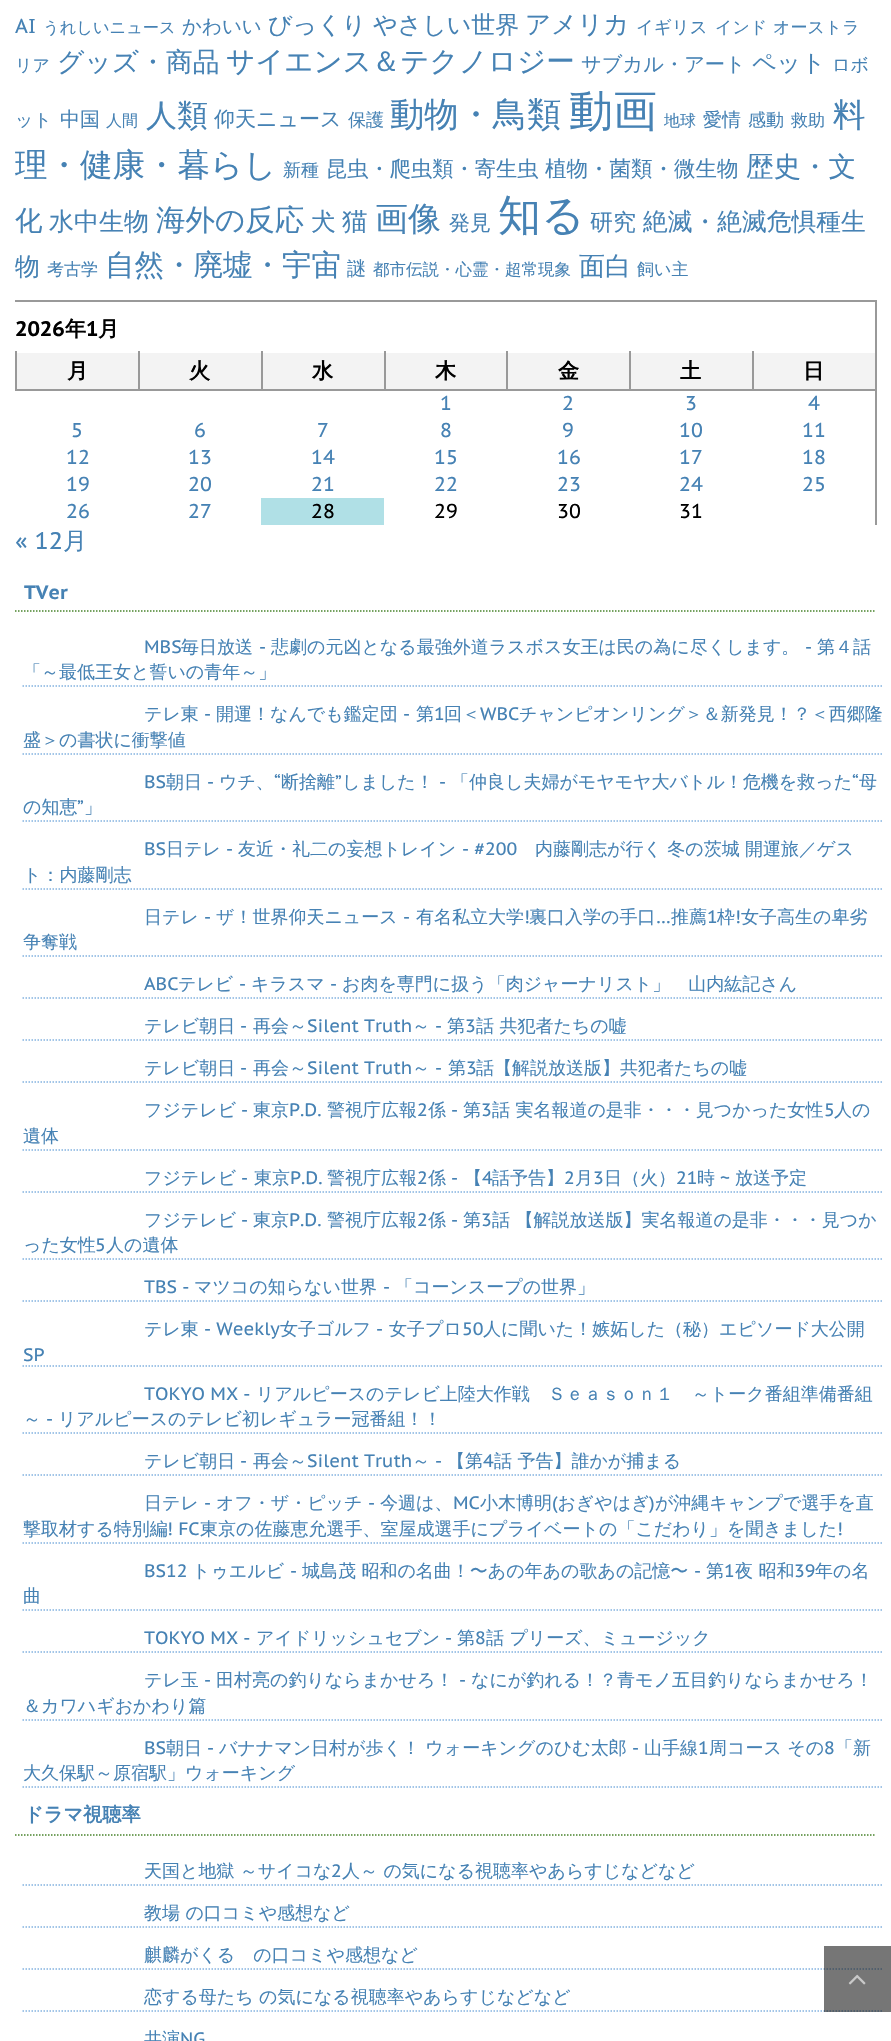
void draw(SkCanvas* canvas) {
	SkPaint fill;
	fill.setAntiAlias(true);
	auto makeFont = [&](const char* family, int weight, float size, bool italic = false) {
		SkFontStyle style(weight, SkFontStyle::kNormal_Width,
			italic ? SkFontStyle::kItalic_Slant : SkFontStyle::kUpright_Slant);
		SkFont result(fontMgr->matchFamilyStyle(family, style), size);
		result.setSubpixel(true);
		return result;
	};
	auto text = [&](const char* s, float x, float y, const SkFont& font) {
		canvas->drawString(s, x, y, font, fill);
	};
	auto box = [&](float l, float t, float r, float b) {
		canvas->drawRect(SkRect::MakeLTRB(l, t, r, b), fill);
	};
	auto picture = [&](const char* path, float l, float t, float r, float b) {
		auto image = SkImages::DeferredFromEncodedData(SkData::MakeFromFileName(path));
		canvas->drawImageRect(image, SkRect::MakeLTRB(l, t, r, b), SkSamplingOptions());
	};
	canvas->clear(0xFFFFFFFF);
	fill.setColor(0xFF999999);
	box(15, 300, 876, 302);
	box(875, 300, 877, 525);
	fill.setColor(0xFFF3F3F3);
	box(17, 353, 138, 389);
	fill.setColor(0xFF999999);
	box(752, 389, 876, 391);
	box(752, 351, 754, 390);
	box(629, 389, 753, 391);
	box(629, 351, 631, 390);
	box(506, 389, 630, 391);
	box(506, 351, 508, 390);
	box(384, 389, 507, 391);
	box(384, 351, 386, 390);
	box(261, 389, 386, 391);
	box(261, 351, 263, 390);
	box(138, 389, 263, 391);
	box(138, 351, 140, 390);
	box(15, 389, 140, 391);
	box(15, 351, 17, 390);
	fill.setColor(0xFFF3F3F3);
	box(140, 353, 261, 389);
	box(263, 353, 384, 389);
	box(386, 353, 506, 389);
	box(508, 353, 629, 389);
	box(631, 353, 752, 389);
	box(754, 353, 875, 389);
	fill.setColor(0xFFB0E0E6);
	box(261, 498, 384, 525);
	fill.setStyle(SkPaint::kStroke_Style);
	fill.setStrokeWidth(1.5f);
	fill.setColor(0xFF48832C);
	fill.setPathEffect(SkDashPathEffect::Make({{1.5f, 1.5f}}, 0));
	canvas->drawPath(SkPathBuilder().moveTo(15, 611).lineTo(876, 611).detach(), fill);
	fill.setPathEffect(nullptr);
	fill.setColor(0xFF84B2E0);
	fill.setPathEffect(SkDashPathEffect::Make({{1.5f, 1.5f}}, 0));
	canvas->drawPath(SkPathBuilder().moveTo(22.5f, 686).lineTo(883.5f, 686).detach(), fill);
	fill.setPathEffect(nullptr);
	fill.setPathEffect(SkDashPathEffect::Make({{1.5f, 1.5f}}, 0));
	canvas->drawPath(SkPathBuilder().moveTo(22.5f, 754).lineTo(883.5f, 754).detach(), fill);
	fill.setPathEffect(nullptr);
	fill.setPathEffect(SkDashPathEffect::Make({{1.5f, 1.5f}}, 0));
	canvas->drawPath(SkPathBuilder().moveTo(22.5f, 821).lineTo(883.5f, 821).detach(), fill);
	fill.setPathEffect(nullptr);
	fill.setPathEffect(SkDashPathEffect::Make({{1.5f, 1.5f}}, 0));
	canvas->drawPath(SkPathBuilder().moveTo(22.5f, 889).lineTo(883.5f, 889).detach(), fill);
	fill.setPathEffect(nullptr);
	fill.setPathEffect(SkDashPathEffect::Make({{1.5f, 1.5f}}, 0));
	canvas->drawPath(SkPathBuilder().moveTo(22.5f, 956).lineTo(883.5f, 956).detach(), fill);
	fill.setPathEffect(nullptr);
	fill.setPathEffect(SkDashPathEffect::Make({{1.5f, 1.5f}}, 0));
	canvas->drawPath(SkPathBuilder().moveTo(22.5f, 998).lineTo(883.5f, 998).detach(), fill);
	fill.setPathEffect(nullptr);
	fill.setPathEffect(SkDashPathEffect::Make({{1.5f, 1.5f}}, 0));
	canvas->drawPath(SkPathBuilder().moveTo(22.5f, 1040).lineTo(883.5f, 1040).detach(), fill);
	fill.setPathEffect(nullptr);
	fill.setPathEffect(SkDashPathEffect::Make({{1.5f, 1.5f}}, 0));
	canvas->drawPath(SkPathBuilder().moveTo(22.5f, 1082).lineTo(883.5f, 1082).detach(), fill);
	fill.setPathEffect(nullptr);
	fill.setPathEffect(SkDashPathEffect::Make({{1.5f, 1.5f}}, 0));
	canvas->drawPath(SkPathBuilder().moveTo(22.5f, 1150).lineTo(883.5f, 1150).detach(), fill);
	fill.setPathEffect(nullptr);
	fill.setPathEffect(SkDashPathEffect::Make({{1.5f, 1.5f}}, 0));
	canvas->drawPath(SkPathBuilder().moveTo(22.5f, 1192).lineTo(883.5f, 1192).detach(), fill);
	fill.setPathEffect(nullptr);
	fill.setPathEffect(SkDashPathEffect::Make({{1.5f, 1.5f}}, 0));
	canvas->drawPath(SkPathBuilder().moveTo(22.5f, 1259).lineTo(883.5f, 1259).detach(), fill);
	fill.setPathEffect(nullptr);
	fill.setPathEffect(SkDashPathEffect::Make({{1.5f, 1.5f}}, 0));
	canvas->drawPath(SkPathBuilder().moveTo(22.5f, 1301).lineTo(883.5f, 1301).detach(), fill);
	fill.setPathEffect(nullptr);
	fill.setPathEffect(SkDashPathEffect::Make({{1.5f, 1.5f}}, 0));
	canvas->drawPath(SkPathBuilder().moveTo(22.5f, 1366).lineTo(883.5f, 1366).detach(), fill);
	fill.setPathEffect(nullptr);
	fill.setPathEffect(SkDashPathEffect::Make({{1.5f, 1.5f}}, 0));
	canvas->drawPath(SkPathBuilder().moveTo(22.5f, 1433).lineTo(883.5f, 1433).detach(), fill);
	fill.setPathEffect(nullptr);
	fill.setPathEffect(SkDashPathEffect::Make({{1.5f, 1.5f}}, 0));
	canvas->drawPath(SkPathBuilder().moveTo(22.5f, 1475).lineTo(883.5f, 1475).detach(), fill);
	fill.setPathEffect(nullptr);
	fill.setPathEffect(SkDashPathEffect::Make({{1.5f, 1.5f}}, 0));
	canvas->drawPath(SkPathBuilder().moveTo(22.5f, 1543).lineTo(883.5f, 1543).detach(), fill);
	fill.setPathEffect(nullptr);
	fill.setPathEffect(SkDashPathEffect::Make({{1.5f, 1.5f}}, 0));
	canvas->drawPath(SkPathBuilder().moveTo(22.5f, 1610).lineTo(883.5f, 1610).detach(), fill);
	fill.setPathEffect(nullptr);
	fill.setPathEffect(SkDashPathEffect::Make({{1.5f, 1.5f}}, 0));
	canvas->drawPath(SkPathBuilder().moveTo(22.5f, 1652).lineTo(883.5f, 1652).detach(), fill);
	fill.setPathEffect(nullptr);
	fill.setPathEffect(SkDashPathEffect::Make({{1.5f, 1.5f}}, 0));
	canvas->drawPath(SkPathBuilder().moveTo(22.5f, 1720).lineTo(883.5f, 1720).detach(), fill);
	fill.setPathEffect(nullptr);
	fill.setPathEffect(SkDashPathEffect::Make({{1.5f, 1.5f}}, 0));
	canvas->drawPath(SkPathBuilder().moveTo(22.5f, 1787).lineTo(883.5f, 1787).detach(), fill);
	fill.setPathEffect(nullptr);
	fill.setColor(0xFF48832C);
	fill.setPathEffect(SkDashPathEffect::Make({{1.5f, 1.5f}}, 0));
	canvas->drawPath(SkPathBuilder().moveTo(15, 1835).lineTo(876, 1835).detach(), fill);
	fill.setPathEffect(nullptr);
	fill.setColor(0xFF84B2E0);
	fill.setPathEffect(SkDashPathEffect::Make({{1.5f, 1.5f}}, 0));
	canvas->drawPath(SkPathBuilder().moveTo(22.5f, 1885).lineTo(883.5f, 1885).detach(), fill);
	fill.setPathEffect(nullptr);
	fill.setPathEffect(SkDashPathEffect::Make({{1.5f, 1.5f}}, 0));
	canvas->drawPath(SkPathBuilder().moveTo(22.5f, 1927).lineTo(883.5f, 1927).detach(), fill);
	fill.setPathEffect(nullptr);
	fill.setPathEffect(SkDashPathEffect::Make({{1.5f, 1.5f}}, 0));
	canvas->drawPath(SkPathBuilder().moveTo(22.5f, 1969).lineTo(883.5f, 1969).detach(), fill);
	fill.setPathEffect(nullptr);
	fill.setPathEffect(SkDashPathEffect::Make({{1.5f, 1.5f}}, 0));
	canvas->drawPath(SkPathBuilder().moveTo(22.5f, 2011).lineTo(883.5f, 2011).detach(), fill);
	fill.setPathEffect(nullptr);
	fill.setStyle(SkPaint::kFill_Style);
	fill.setColor(0x991A1A1A);
	box(824, 1946, 891, 2012);
	picture("image0.png", 848, 1974, 866, 1985);
	auto font1 = makeFont("PT Sans Caption", 400, 20);
	fill.setColor(0xFF4682B4);
	text("AI", 15, 33, font1);
	auto font2 = makeFont("WenQuanYi Zen Hei", 500, 16.25f);
	text("うれしいニュース", 43, 33, font2);
	auto font3 = makeFont("WenQuanYi Zen Hei", 500, 19.5f);
	text("かわいい", 182, 33, font3);
	auto font4 = makeFont("WenQuanYi Zen Hei", 500, 24);
	text("びっくり", 268, 33, font4);
	text("やさしい世界", 373, 33, font4);
	auto font5 = makeFont("WenQuanYi Zen Hei", 500, 25.5f);
	text("アメリカ", 525, 33, font5);
	auto font6 = makeFont("WenQuanYi Zen Hei", 500, 17.5f);
	text("イギリス", 636, 33, font6);
	auto font7 = makeFont("WenQuanYi Zen Hei", 500, 17);
	text("インド", 715, 33, font7);
	text("オーストラ", 773, 33, font7);
	text("リア", 15, 71, font7);
	auto font8 = makeFont("WenQuanYi Zen Hei", 500, 26.75f);
	text("グッズ・商品", 57, 71, font8);
	auto font9 = makeFont("WenQuanYi Zen Hei", 500, 28.5f);
	text("サイエンス＆テクノロジー", 226, 71, font9);
	auto font10 = makeFont("WenQuanYi Zen Hei", 500, 20.25f);
	text("サブカル・アート", 581, 71, font10);
	text("ペット", 752, 71, font4);
	auto font11 = makeFont("WenQuanYi Zen Hei", 500, 18);
	text("ロボ", 832, 71, font11);
	text("ット", 15, 126, font11);
	auto font12 = makeFont("WenQuanYi Zen Hei", 500, 20);
	text("中国", 60, 126, font12);
	auto font13 = makeFont("WenQuanYi Zen Hei", 500, 16);
	text("人間", 106, 126, font13);
	auto font14 = makeFont("WenQuanYi Zen Hei", 500, 31);
	text("人類", 146, 126, font14);
	auto font15 = makeFont("WenQuanYi Zen Hei", 500, 21);
	text("仰天ニュース", 214, 126, font15);
	text("保護", 348, 126, font11);
	auto font16 = makeFont("WenQuanYi Zen Hei", 500, 34.25f);
	text("動物・鳥類", 390, 126, font16);
	auto font17 = makeFont("WenQuanYi Zen Hei", 500, 44);
	text("動画", 569, 126, font17);
	text("地球", 664, 126, font13);
	auto font18 = makeFont("WenQuanYi Zen Hei", 500, 19);
	text("愛情", 703, 126, font18);
	text("感動", 748, 126, font11);
	text("救助", 791, 126, font7);
	auto font19 = makeFont("WenQuanYi Zen Hei", 500, 32.5f);
	text("料", 833, 126, font19);
	text("理・健康・暮らし", 15, 176, font19);
	text("新種", 283, 176, font11);
	auto font20 = makeFont("WenQuanYi Zen Hei", 500, 21.25f);
	text("昆虫・爬虫類・寄生虫", 326, 176, font20);
	auto font21 = makeFont("WenQuanYi Zen Hei", 500, 21.5f);
	text("植物・菌類・微生物", 545, 176, font21);
	auto font22 = makeFont("WenQuanYi Zen Hei", 500, 27.5f);
	text("歴史・文", 746, 176, font22);
	text("化", 15, 230, font22);
	auto font23 = makeFont("WenQuanYi Zen Hei", 500, 25);
	text("水中生物", 49, 230, font23);
	auto font24 = makeFont("WenQuanYi Zen Hei", 500, 29.5f);
	text("海外の反応", 156, 230, font24);
	auto font25 = makeFont("WenQuanYi Zen Hei", 500, 24.75f);
	text("犬", 311, 230, font25);
	text("猫", 342, 230, font5);
	auto font26 = makeFont("WenQuanYi Zen Hei", 500, 33);
	text("画像", 375, 230, font26);
	text("発見", 449, 230, font15);
	auto font27 = makeFont("WenQuanYi Zen Hei", 500, 43);
	text("知る", 498, 230, font27);
	auto font28 = makeFont("WenQuanYi Zen Hei", 500, 23);
	text("研究", 590, 230, font28);
	text("絶滅・絶滅危惧種生", 643, 230, font25);
	text("物", 15, 275, font25);
	text("考古学", 47, 275, font7);
	text("自然・廃墟・宇宙", 105, 275, font24);
	text("謎", 347, 275, font18);
	auto font29 = makeFont("WenQuanYi Zen Hei", 500, 16.5f);
	text("都市伝説・心霊・超常現象", 373, 275, font29);
	auto font30 = makeFont("WenQuanYi Zen Hei", 500, 26);
	text("面白", 579, 275, font30);
	text("飼い主", 637, 275, font7);
	auto font31 = makeFont("PT Sans Caption", 700, 21);
	fill.setColor(0xFF000000);
	text("2026", 15, 336, font31);
	auto font32 = makeFont("WenQuanYi Zen Hei", 700, 21);
	text("年", 65, 336, font32);
	text("1", 86, 336, font31);
	text("月", 98, 336, font32);
	text("月", 67, 378, font32);
	text("火", 189, 378, font32);
	text("水", 312, 378, font32);
	text("木", 435, 378, font32);
	text("金", 558, 378, font32);
	text("土", 680, 378, font32);
	text("日", 803, 378, font32);
	fill.setColor(0xFF4682B4);
	text("1", 440, 410, font1);
	text("2", 562, 410, font1);
	text("3", 685, 410, font1);
	text("4", 808, 410, font1);
	text("5", 71, 437, font1);
	text("6", 194, 437, font1);
	text("7", 317, 437, font1);
	text("8", 440, 437, font1);
	text("9", 562, 437, font1);
	text("10", 679, 437, font1);
	text("11", 802, 437, font1);
	text("12", 66, 464, font1);
	text("13", 188, 464, font1);
	text("14", 311, 464, font1);
	text("15", 434, 464, font1);
	text("16", 557, 464, font1);
	text("17", 679, 464, font1);
	text("18", 802, 464, font1);
	text("19", 66, 491, font1);
	text("20", 188, 491, font1);
	text("21", 311, 491, font1);
	text("22", 434, 491, font1);
	text("23", 557, 491, font1);
	text("24", 679, 491, font1);
	text("25", 802, 491, font1);
	text("26", 66, 518, font1);
	text("27", 188, 518, font1);
	fill.setColor(0xFF000000);
	text("28", 311, 518, font1);
	text("29", 434, 518, font1);
	text("30", 557, 518, font1);
	text("31", 679, 518, font1);
	auto font33 = makeFont("PT Sans Caption", 400, 24);
	fill.setColor(0xFF4682B4);
	text("« 12", 15, 549, font33);
	text("月", 63, 549, font4);
	auto font34 = makeFont("PT Sans Caption", 700, 19.25f);
	text("TVer", 24, 599, font34);
	auto font35 = makeFont("PT Sans Caption", 400, 18);
	text("MBS", 144, 653, font35);
	text("毎日放送", 181, 653, font11);
	text("-", 259, 653, font35);
	text("悲劇の元凶となる最強外道ラスボス女王は民の為に尽くします。", 271, 653, font11);
	text("-", 805, 653, font35);
	text("第４話", 817, 653, font11);
	text("「～最低王女と誓いの青年～」", 23, 678, font11);
	text("テレ東", 144, 720, font11);
	text("-", 204, 720, font35);
	text("開運！なんでも鑑定団", 216, 720, font11);
	text("-", 403, 720, font35);
	text("第", 416, 720, font11);
	text("1", 434, 720, font35);
	text("回＜", 444, 720, font11);
	text("WBC", 480, 720, font35);
	text("チャンピオンリング＞＆新発見！？＜西郷隆", 519, 720, font11);
	text("盛＞の書状に衝撃値", 23, 746, font11);
	text("BS", 144, 788, font35);
	text("朝日", 166, 788, font11);
	text("ウチ、", 219, 788, font11);
	text("“", 274, 788, font35);
	text("断捨離", 281, 788, font11);
	text("”", 335, 788, font35);
	text("しました！", 342, 788, font11);
	text("「仲良し夫婦がモヤモヤ大バトル！危機を救った", 451, 788, font11);
	text("“", 852, 788, font35);
	text("母", 859, 788, font11);
	text("-", 207, 788, font35);
	text("-", 439, 788, font35);
	text("の知恵", 23, 813, font11);
	text("”", 77, 813, font35);
	text("」", 84, 813, font11);
	text("BS", 144, 855, font35);
	text("日テレ", 166, 855, font11);
	text("-", 226, 855, font35);
	text("友近・礼二の妄想トレイン", 238, 855, font11);
	text("- #200", 462, 855, font35);
	text("内藤剛志が行く 冬の茨城 開運旅／ゲス", 535, 855, font11);
	text("ト：内藤剛志", 23, 881, font11);
	text("日テレ", 144, 923, font11);
	text("-", 204, 923, font35);
	text("ザ！世界仰天ニュース", 216, 923, font11);
	text("-", 403, 923, font35);
	text("有名私立大学", 416, 923, font11);
	text("!", 524, 923, font35);
	text("裏口入学の手口", 529, 923, font11);
	text("推薦", 671, 923, font11);
	text("1", 707, 923, font35);
	text("枠", 717, 923, font11);
	text("!", 735, 923, font35);
	text("女子高生の卑劣", 741, 923, font11);
	text("…", 656, 923, font35);
	text("争奪戦", 23, 948, font11);
	text("ABC", 144, 990, font35);
	text("テレビ", 178, 990, font11);
	text("-", 239, 990, font35);
	text("キラスマ", 251, 990, font11);
	text("-", 330, 990, font35);
	text("お肉を専門に扱う「肉ジャーナリスト」　山内紘記さん", 342, 990, font11);
	text("テレビ朝日", 144, 1032, font11);
	text("-", 240, 1032, font35);
	text("再会～", 253, 1032, font11);
	text("Silent Truth", 307, 1032, font35);
	text("～", 412, 1032, font11);
	text("-", 435, 1032, font35);
	text("第", 447, 1032, font11);
	text("3", 465, 1032, font35);
	text("話 共犯者たちの嘘", 476, 1032, font11);
	text("テレビ朝日", 144, 1074, font11);
	text("-", 240, 1074, font35);
	text("再会～", 253, 1074, font11);
	text("Silent Truth", 307, 1074, font35);
	text("～", 412, 1074, font11);
	text("-", 435, 1074, font35);
	text("第", 448, 1074, font11);
	text("3", 466, 1074, font35);
	text("話【解説放送版】共犯者たちの嘘", 476, 1074, font11);
	text("フジテレビ", 144, 1116, font11);
	text("-", 241, 1116, font35);
	text("東京", 253, 1116, font11);
	text("P.D.", 289, 1116, font35);
	text("警視庁広報", 327, 1116, font11);
	text("2", 417, 1116, font35);
	text("係", 428, 1116, font11);
	text("-", 451, 1116, font35);
	text("第", 463, 1116, font11);
	text("3", 481, 1116, font35);
	text("話 実名報道の是非・・・見つかった女性", 492, 1116, font11);
	text("5", 824, 1116, font35);
	text("人の", 834, 1116, font11);
	text("遺体", 23, 1142, font11);
	text("フジテレビ", 144, 1184, font11);
	text("-", 241, 1184, font35);
	text("東京", 254, 1184, font11);
	text("P.D.", 290, 1184, font35);
	text("警視庁広報", 327, 1184, font11);
	text("2", 417, 1184, font35);
	text("係", 428, 1184, font11);
	text("-", 451, 1184, font35);
	text("【", 464, 1184, font11);
	text("4", 482, 1184, font35);
	text("話予告】", 492, 1184, font11);
	text("2", 564, 1184, font35);
	text("月", 575, 1184, font11);
	text("3", 593, 1184, font35);
	text("日（火）", 604, 1184, font11);
	text("21", 676, 1184, font35);
	text("時", 697, 1184, font11);
	text("~", 720, 1184, font35);
	text("放送予定", 735, 1184, font11);
	text("フジテレビ", 144, 1226, font11);
	text("-", 241, 1226, font35);
	text("東京", 253, 1226, font11);
	text("P.D.", 289, 1226, font35);
	text("警視庁広報", 327, 1226, font11);
	text("2", 417, 1226, font35);
	text("係", 428, 1226, font11);
	text("-", 451, 1226, font35);
	text("第", 463, 1226, font11);
	text("3", 481, 1226, font35);
	text("話 【解説放送版】実名報道の是非・・・見つか", 492, 1226, font11);
	text("った女性", 23, 1251, font11);
	text("5", 95, 1251, font35);
	text("人の遺体", 106, 1251, font11);
	text("TBS -", 144, 1293, font35);
	text("マツコの知らない世界", 194, 1293, font11);
	text("-", 383, 1293, font35);
	text("「コーンスープの世界」", 395, 1293, font11);
	text("テレ東", 144, 1335, font11);
	text("- Weekly", 204, 1335, font35);
	text("女子ゴルフ", 280, 1335, font11);
	text("-", 376, 1335, font35);
	text("女子プロ", 389, 1335, font11);
	text("50", 462, 1335, font35);
	text("人に聞いた！嫉妬した（秘）エピソード大公開", 483, 1335, font11);
	text("SP", 23, 1361, font35);
	text("TOKYO MX -", 144, 1400, font35);
	text("リアルピースのテレビ上陸大作戦　Ｓｅａｓｏｎ１　～トーク番組準備番組", 256, 1400, font11);
	text("～", 23, 1425, font11);
	text("-", 46, 1425, font35);
	text("リアルピースのテレビ初レギュラー冠番組！！", 58, 1425, font11);
	text("テレビ朝日", 144, 1467, font11);
	text("-", 240, 1467, font35);
	text("再会～", 253, 1467, font11);
	text("Silent Truth", 307, 1467, font35);
	text("～", 412, 1467, font11);
	text("-", 435, 1467, font35);
	text("【第", 447, 1467, font11);
	text("4", 483, 1467, font35);
	text("話 予告】誰かが捕まる", 494, 1467, font11);
	text("日テレ", 144, 1509, font11);
	text("オフ・ザ・ピッチ", 216, 1509, font11);
	text("今週は、", 380, 1509, font11);
	text("MC", 453, 1509, font35);
	text("小木博明 おぎやはぎ が沖縄キャンプで選手を直", 480, 1509, font11);
	text("-", 204, 1509, font35);
	text("-", 368, 1509, font35);
	text("(", 552, 1509, font35);
	text(")", 649, 1509, font35);
	text("撃取材する特別編", 23, 1535, font11);
	text("! FC", 167, 1535, font35);
	text("東京の佐藤恵允選手、室屋成選手にプライベートの「こだわり」を聞きました", 200, 1535, font11);
	text("!", 837, 1535, font35);
	text("BS12", 144, 1577, font35);
	text("トゥエルビ", 192, 1577, font11);
	text("-", 290, 1577, font35);
	text("城島茂 昭和の名曲！〜あの年あの歌あの記憶〜", 302, 1577, font11);
	text("-", 694, 1577, font35);
	text("第", 706, 1577, font11);
	text("1", 724, 1577, font35);
	text("夜 昭和", 735, 1577, font11);
	text("39", 794, 1577, font35);
	text("年の名", 815, 1577, font11);
	text("曲", 23, 1602, font11);
	text("TOKYO MX -", 144, 1644, font35);
	text("アイドリッシュセブン", 256, 1644, font11);
	text("-", 445, 1644, font35);
	text("第", 457, 1644, font11);
	text("8", 475, 1644, font35);
	text("話 プリーズ、ミュージック", 486, 1644, font11);
	text("テレ玉", 144, 1686, font11);
	text("-", 204, 1686, font35);
	text("田村亮の釣りならまかせろ！", 216, 1686, font11);
	text("-", 459, 1686, font35);
	text("なにが釣れる！？⻘モノ五⽬釣りならまかせろ！", 471, 1686, font11);
	text("＆カワハギおかわり篇", 23, 1712, font11);
	text("BS", 144, 1754, font35);
	text("朝日", 166, 1754, font11);
	text("-", 207, 1754, font35);
	text("バナナマン日村が歩く！ ウォーキングのひむ太郎", 219, 1754, font11);
	text("-", 632, 1754, font35);
	text("山手線", 644, 1754, font11);
	text("1", 698, 1754, font35);
	text("周コース その", 709, 1754, font11);
	text("8", 824, 1754, font35);
	text("「新", 835, 1754, font11);
	text("大久保駅～原宿駅」ウォーキング", 23, 1779, font11);
	auto font36 = makeFont("WenQuanYi Zen Hei", 700, 19.25f);
	text("ドラマ視聴率", 24, 1821, font36);
	text("天国と地獄 ～サイコな", 144, 1877, font11);
	text("2", 331, 1877, font35);
	text("人～ の気になる視聴率やあらすじなどなど", 342, 1877, font11);
	text("教場 の口コミや感想など", 144, 1919, font11);
	text("麒麟がくる　の口コミや感想など", 144, 1961, font11);
	text("恋する母たち の気になる視聴率やあらすじなどなど", 144, 2003, font11);
	text("共演", 144, 2045, font11);
	text("NG", 180, 2045, font35);
}
